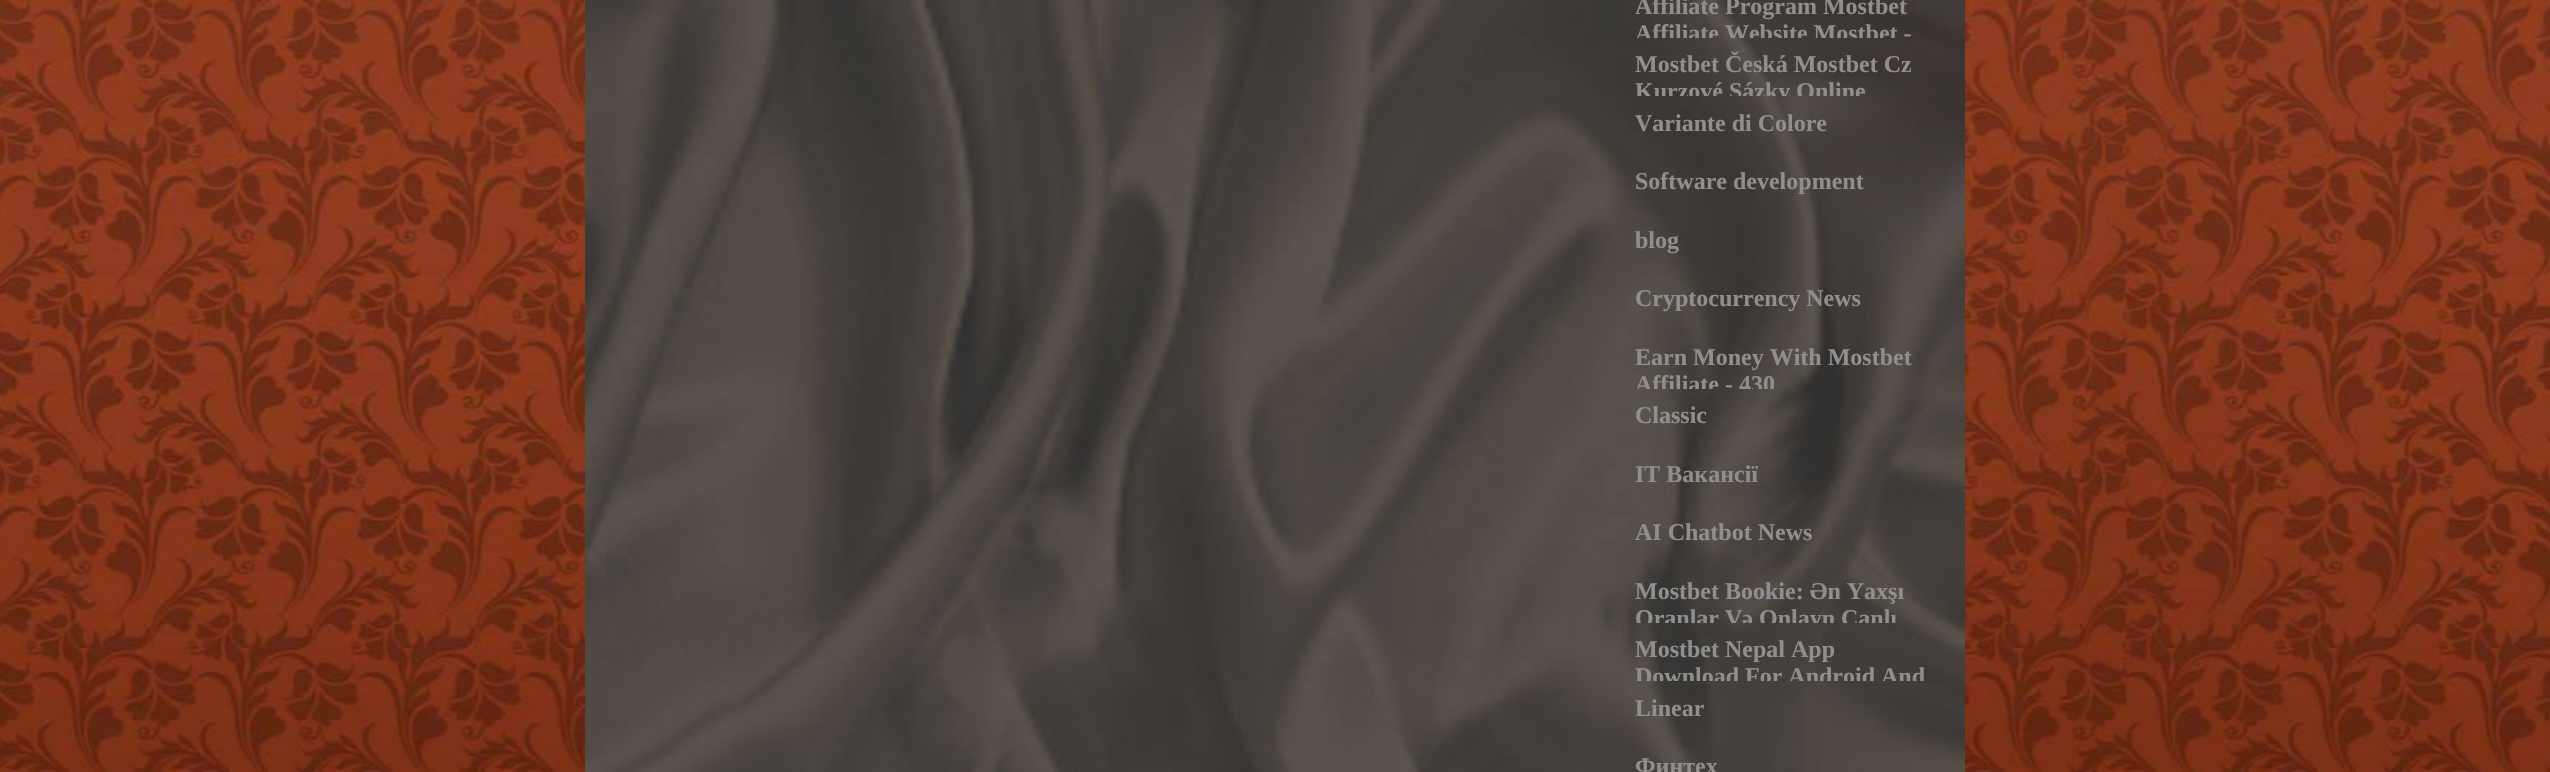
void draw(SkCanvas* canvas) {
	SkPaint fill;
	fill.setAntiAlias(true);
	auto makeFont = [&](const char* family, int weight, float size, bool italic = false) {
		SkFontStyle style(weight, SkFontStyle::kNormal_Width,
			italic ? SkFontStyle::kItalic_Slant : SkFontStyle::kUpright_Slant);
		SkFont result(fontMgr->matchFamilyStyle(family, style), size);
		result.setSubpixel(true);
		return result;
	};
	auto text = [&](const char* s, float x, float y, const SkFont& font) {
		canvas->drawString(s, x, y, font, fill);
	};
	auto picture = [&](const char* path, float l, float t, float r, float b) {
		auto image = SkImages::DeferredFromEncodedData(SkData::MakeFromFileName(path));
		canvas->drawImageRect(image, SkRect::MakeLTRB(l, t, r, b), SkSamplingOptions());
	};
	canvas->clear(0xFFFFFFFF);
	picture("image0.png", 0, 0, 2550, 772);
	picture("image1.png", 585, 0, 1965, 772);
	auto font1 = makeFont("Liberation Serif", 700, 24);
	fill.setColor(0xFF8F8F8F);
	text("Affiliate Program Mostbet", 1635, 14, font1);
	canvas->save();
	canvas->clipRect(SkRect::MakeLTRB(1433, 0, 1943, 38));
	text("Affiliate Website Mostbet -", 1635, 41, font1);
	canvas->restore();
	text("Mostbet Česká Mostbet Cz", 1635, 72, font1);
	canvas->save();
	canvas->clipRect(SkRect::MakeLTRB(1433, 38, 1943, 96));
	text("Kurzové Sázky Online", 1635, 99, font1);
	canvas->restore();
	text("Variante di Colore", 1635, 131, font1);
	text("Software development", 1635, 189, font1);
	text("blog", 1635, 248, font1);
	text("Cryptocurrency News", 1635, 306, font1);
	text("Earn Money With Mostbet", 1635, 365, font1);
	canvas->save();
	canvas->clipRect(SkRect::MakeLTRB(1433, 330, 1943, 389));
	text("Affiliate - 430", 1635, 392, font1);
	canvas->restore();
	text("Classic", 1635, 423, font1);
	text("IT Вакансії", 1635, 482, font1);
	text("AI Chatbot News", 1635, 540, font1);
	text("Mostbet Bookie: Ən Yaxşı", 1635, 599, font1);
	canvas->save();
	canvas->clipRect(SkRect::MakeLTRB(1433, 564, 1943, 623));
	text("Oranlar Və Onlayn Canlı", 1635, 626, font1);
	canvas->restore();
	text("Mostbet Nepal App", 1635, 657, font1);
	canvas->save();
	canvas->clipRect(SkRect::MakeLTRB(1433, 623, 1943, 681));
	text("Download For Android And", 1635, 684, font1);
	canvas->restore();
	text("Linear", 1635, 716, font1);
	text("Финтех", 1635, 774, font1);
}
